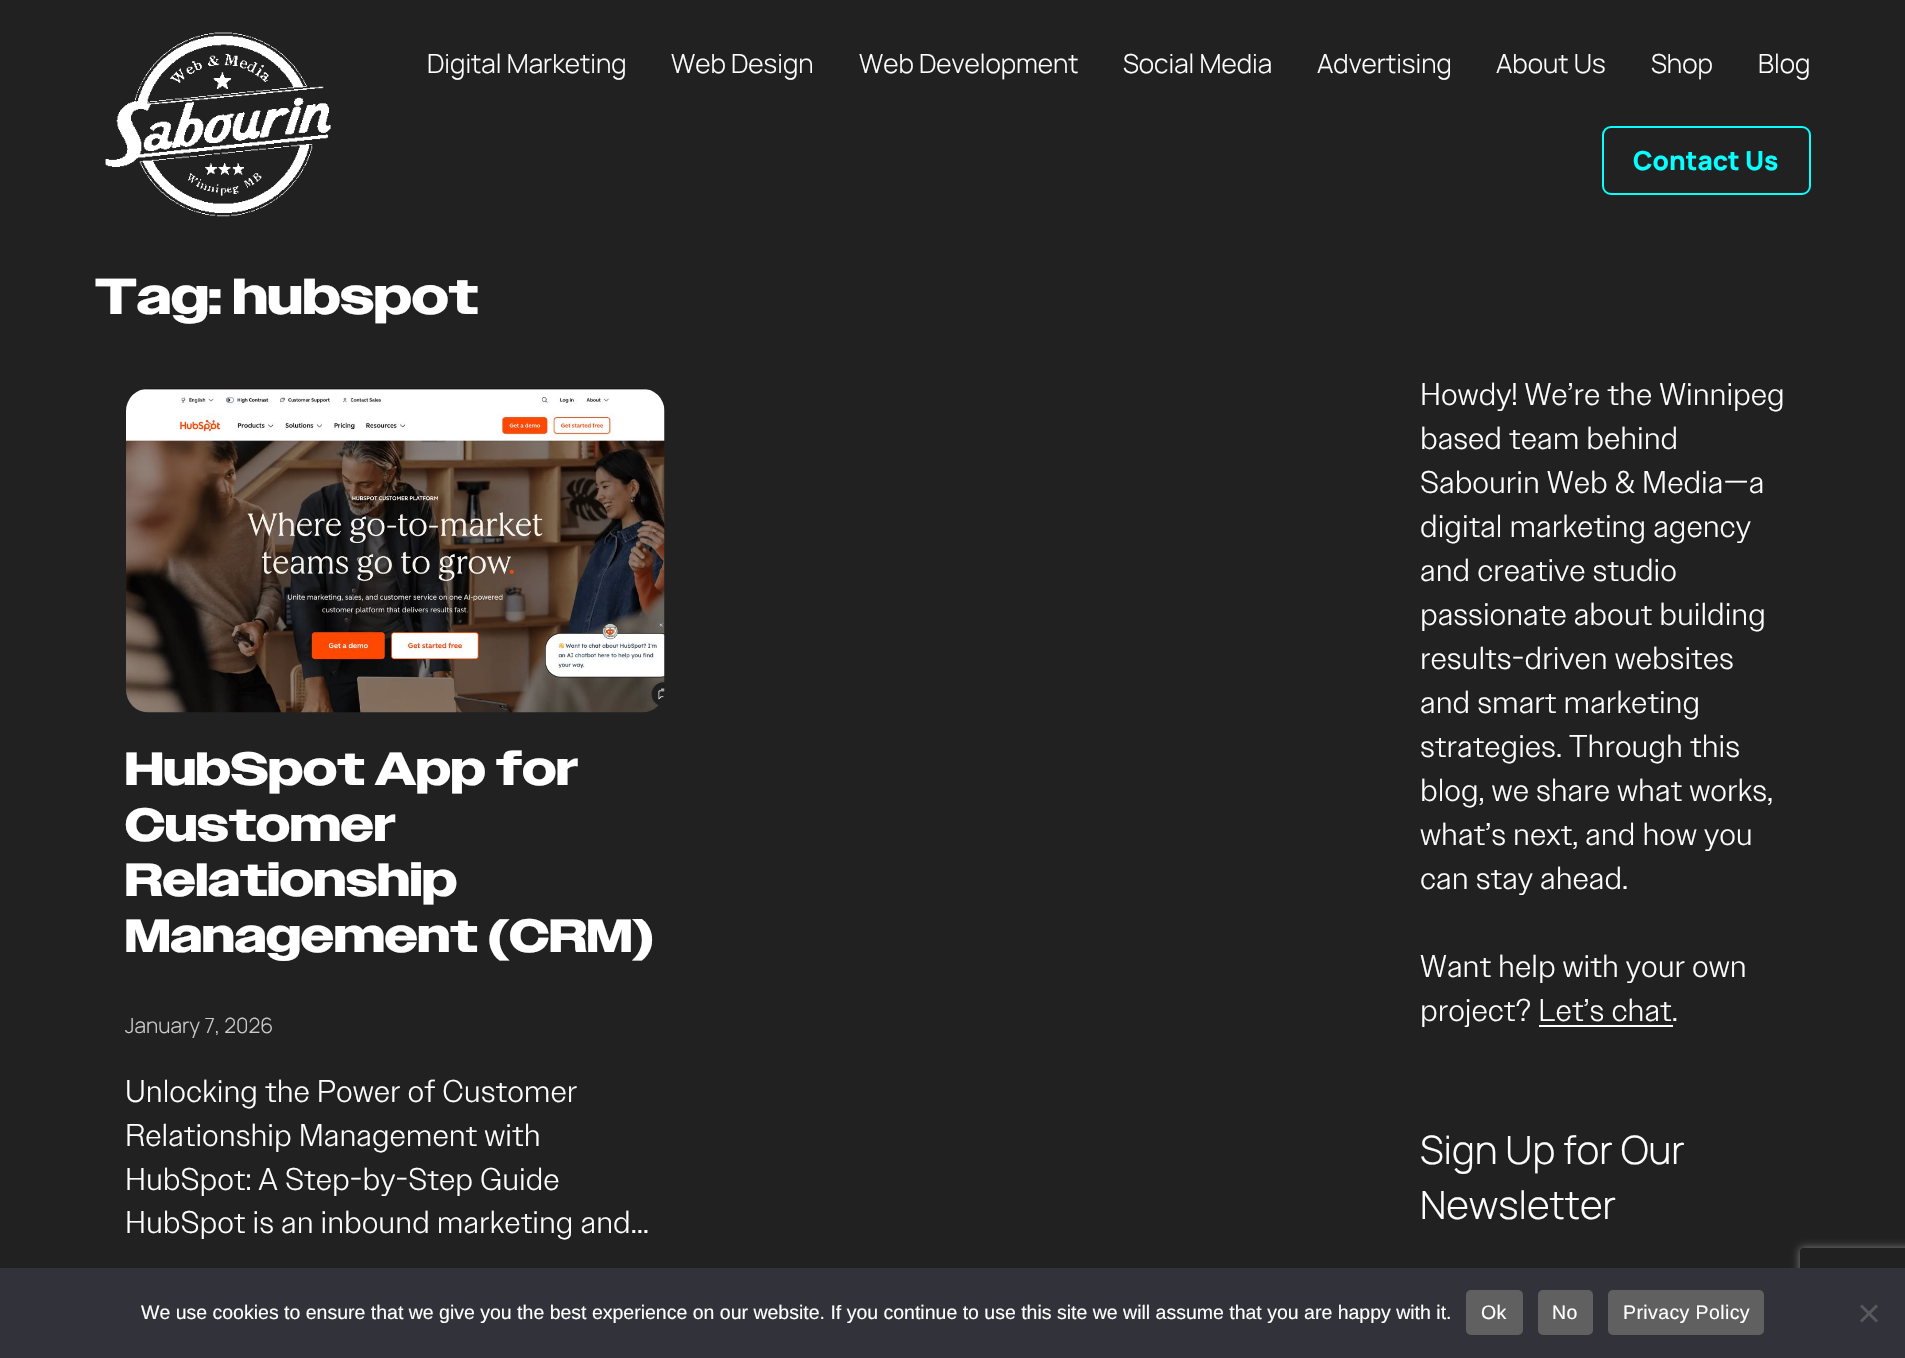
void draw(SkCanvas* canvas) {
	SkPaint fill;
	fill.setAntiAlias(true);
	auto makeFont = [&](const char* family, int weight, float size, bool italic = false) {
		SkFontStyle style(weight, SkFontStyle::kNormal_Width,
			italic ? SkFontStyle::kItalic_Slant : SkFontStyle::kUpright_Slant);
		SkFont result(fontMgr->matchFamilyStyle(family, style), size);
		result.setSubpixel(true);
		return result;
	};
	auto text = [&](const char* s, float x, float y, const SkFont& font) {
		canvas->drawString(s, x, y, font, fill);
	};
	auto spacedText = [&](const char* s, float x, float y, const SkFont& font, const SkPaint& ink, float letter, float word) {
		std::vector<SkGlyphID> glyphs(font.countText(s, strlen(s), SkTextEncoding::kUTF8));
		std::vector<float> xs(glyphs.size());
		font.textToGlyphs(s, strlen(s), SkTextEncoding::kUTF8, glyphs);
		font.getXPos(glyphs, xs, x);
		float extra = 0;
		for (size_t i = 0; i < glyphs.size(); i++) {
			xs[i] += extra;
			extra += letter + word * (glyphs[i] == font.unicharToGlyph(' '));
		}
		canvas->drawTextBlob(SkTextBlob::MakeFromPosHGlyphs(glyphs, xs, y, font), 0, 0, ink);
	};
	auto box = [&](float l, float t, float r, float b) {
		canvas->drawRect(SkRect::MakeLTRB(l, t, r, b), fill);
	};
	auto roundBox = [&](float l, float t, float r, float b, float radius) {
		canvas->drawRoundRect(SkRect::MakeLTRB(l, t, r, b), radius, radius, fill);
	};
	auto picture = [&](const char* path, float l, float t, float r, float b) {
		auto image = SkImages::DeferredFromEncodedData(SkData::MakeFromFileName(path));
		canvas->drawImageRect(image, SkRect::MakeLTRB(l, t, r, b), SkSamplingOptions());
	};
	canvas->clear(0xFF212121);
	picture("image0.png", 105, 32, 331, 217);
	fill.setStyle(SkPaint::kStroke_Style);
	fill.setStrokeWidth(2);
	fill.setColor(0xFF09FEFF);
	canvas->drawRoundRect(SkRect::MakeLTRB(1603, 127, 1810, 194), 8, 8, fill);
	picture("image1.png", 126, 388, 665, 713);
	fill.setStyle(SkPaint::kFill_Style);
	fill.setColor(0xFFFFFFFF);
	box(1539, 1025, 1673, 1027);
	canvas->save();
	canvas->clipPath(SkPathBuilder(SkPathFillType::kEvenOdd).moveTo(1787, 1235).lineTo(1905, 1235).lineTo(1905, 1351).lineTo(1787, 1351).close().moveTo(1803, 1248).lineTo(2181, 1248).cubicTo(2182.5f, 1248, 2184, 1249.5f, 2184, 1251).lineTo(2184, 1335).cubicTo(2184, 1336.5f, 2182.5f, 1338, 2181, 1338).lineTo(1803, 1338).cubicTo(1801.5f, 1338, 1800, 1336.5f, 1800, 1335).lineTo(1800, 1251).cubicTo(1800, 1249.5f, 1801.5f, 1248, 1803, 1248).close().detach(), true);
	fill.setColor(0xFF808080);
	fill.setMaskFilter(SkMaskFilter::MakeBlur(kNormal_SkBlurStyle, 4));
	canvas->drawRoundRect(SkRect::MakeLTRB(1800, 1248, 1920, 1338), 3, 3, fill);
	fill.setMaskFilter(nullptr);
	canvas->restore();
	fill.setColor(0xFF32323A);
	box(0, 1268, 1905, 1358);
	fill.setColor(0xFF606060);
	roundBox(1466, 1290, 1523, 1335, 5);
	roundBox(1538, 1290, 1593, 1335, 5);
	roundBox(1608, 1290, 1764, 1335, 5);
	fill.setColor(0xFF59595D);
	canvas->drawPath(SkPathBuilder().moveTo(1876, 1304.5f).lineTo(1878, 1306.5f).lineTo(1862, 1322.5f).lineTo(1860, 1320.5f).close().detach(), fill);
	canvas->drawPath(SkPathBuilder().moveTo(1860, 1306.5f).lineTo(1862, 1304.5f).lineTo(1878, 1320.5f).lineTo(1876, 1322.5f).close().detach(), fill);
	auto font1 = makeFont("Manrope", 300, 26.25f);
	fill.setColor(0xFFFFFFFF);
	text("Digital Marketing", 427, 73, font1);
	text("Web Design", 671, 73, font1);
	text("Web Development", 859, 73, font1);
	text("Social Media", 1123, 73, font1);
	text("Advertising", 1317, 73, font1);
	text("About Us", 1496, 73, font1);
	text("Shop", 1651, 73, font1);
	text("Blog", 1758, 73, font1);
	auto font2 = makeFont("Manrope", 800, 26.25f);
	fill.setColor(0xFF09FEFF);
	text("Contact Us", 1633, 170, font2);
	auto font3 = makeFont("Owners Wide", 700, 50.25f);
	fill.setColor(0xFFFFFFFF);
	spacedText("Tag: hubspot", 95, 314, font3, fill, -0.1f, 0);
	auto font4 = makeFont("Owners Wide", 700, 46.5f);
	spacedText("HubSpot App for", 125, 785, font4, fill, -0.1f, 0);
	spacedText("Customer", 125, 841, font4, fill, -0.1f, 0);
	spacedText("Relationship", 125, 896, font4, fill, -0.1f, 0);
	spacedText("Management (CRM)", 125, 952, font4, fill, -0.1f, 0);
	auto font5 = makeFont("Manrope", 300, 21);
	fill.setColor(0xFFCBCBCB);
	text("January 7, 2026", 125, 1033, font5);
	auto font6 = makeFont("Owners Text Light", 300, 31.4f);
	fill.setColor(0xFFFFFFFF);
	text("Unlocking the Power of Customer", 125, 1102, font6);
	text("Relationship Management with", 125, 1146, font6);
	text("HubSpot: A Step-by-Step Guide", 125, 1190, font6);
	text("HubSpot is an inbound marketing and…", 125, 1233, font6);
	text("Howdy! We’re the Winnipeg", 1420, 405, font6);
	text("based team behind", 1420, 449, font6);
	text("Sabourin Web & Media—a", 1420, 493, font6);
	text("digital marketing agency", 1420, 537, font6);
	text("and creative studio", 1420, 581, font6);
	text("passionate about building", 1420, 625, font6);
	text("results-driven websites", 1420, 669, font6);
	text("and smart marketing", 1420, 713, font6);
	text("strategies. Through this", 1420, 757, font6);
	text("blog, we share what works,", 1420, 801, font6);
	text("what’s next, and how you", 1420, 845, font6);
	text("can stay ahead.", 1420, 889, font6);
	text("Want help with your own", 1420, 977, font6);
	text("project? Let’s chat.", 1420, 1021, font6);
	auto font7 = makeFont("Manrope", 300, 39);
	text("Sign Up for Our", 1420, 1164, font7);
	text("Newsletter", 1420, 1219, font7);
	auto font8 = makeFont("Liberation Sans", 400, 19.5f);
	text("We use cookies to ensure that we give you the best experience on our website. If you continue to use this site we will assume that you are happy with it.", 141, 1319, font8);
	spacedText("Ok", 1481, 1319, font8, fill, 0.4f, 0);
	spacedText("No", 1552, 1319, font8, fill, 0.4f, 0);
	spacedText("Privacy Policy", 1623, 1319, font8, fill, 0.4f, 0);
}
